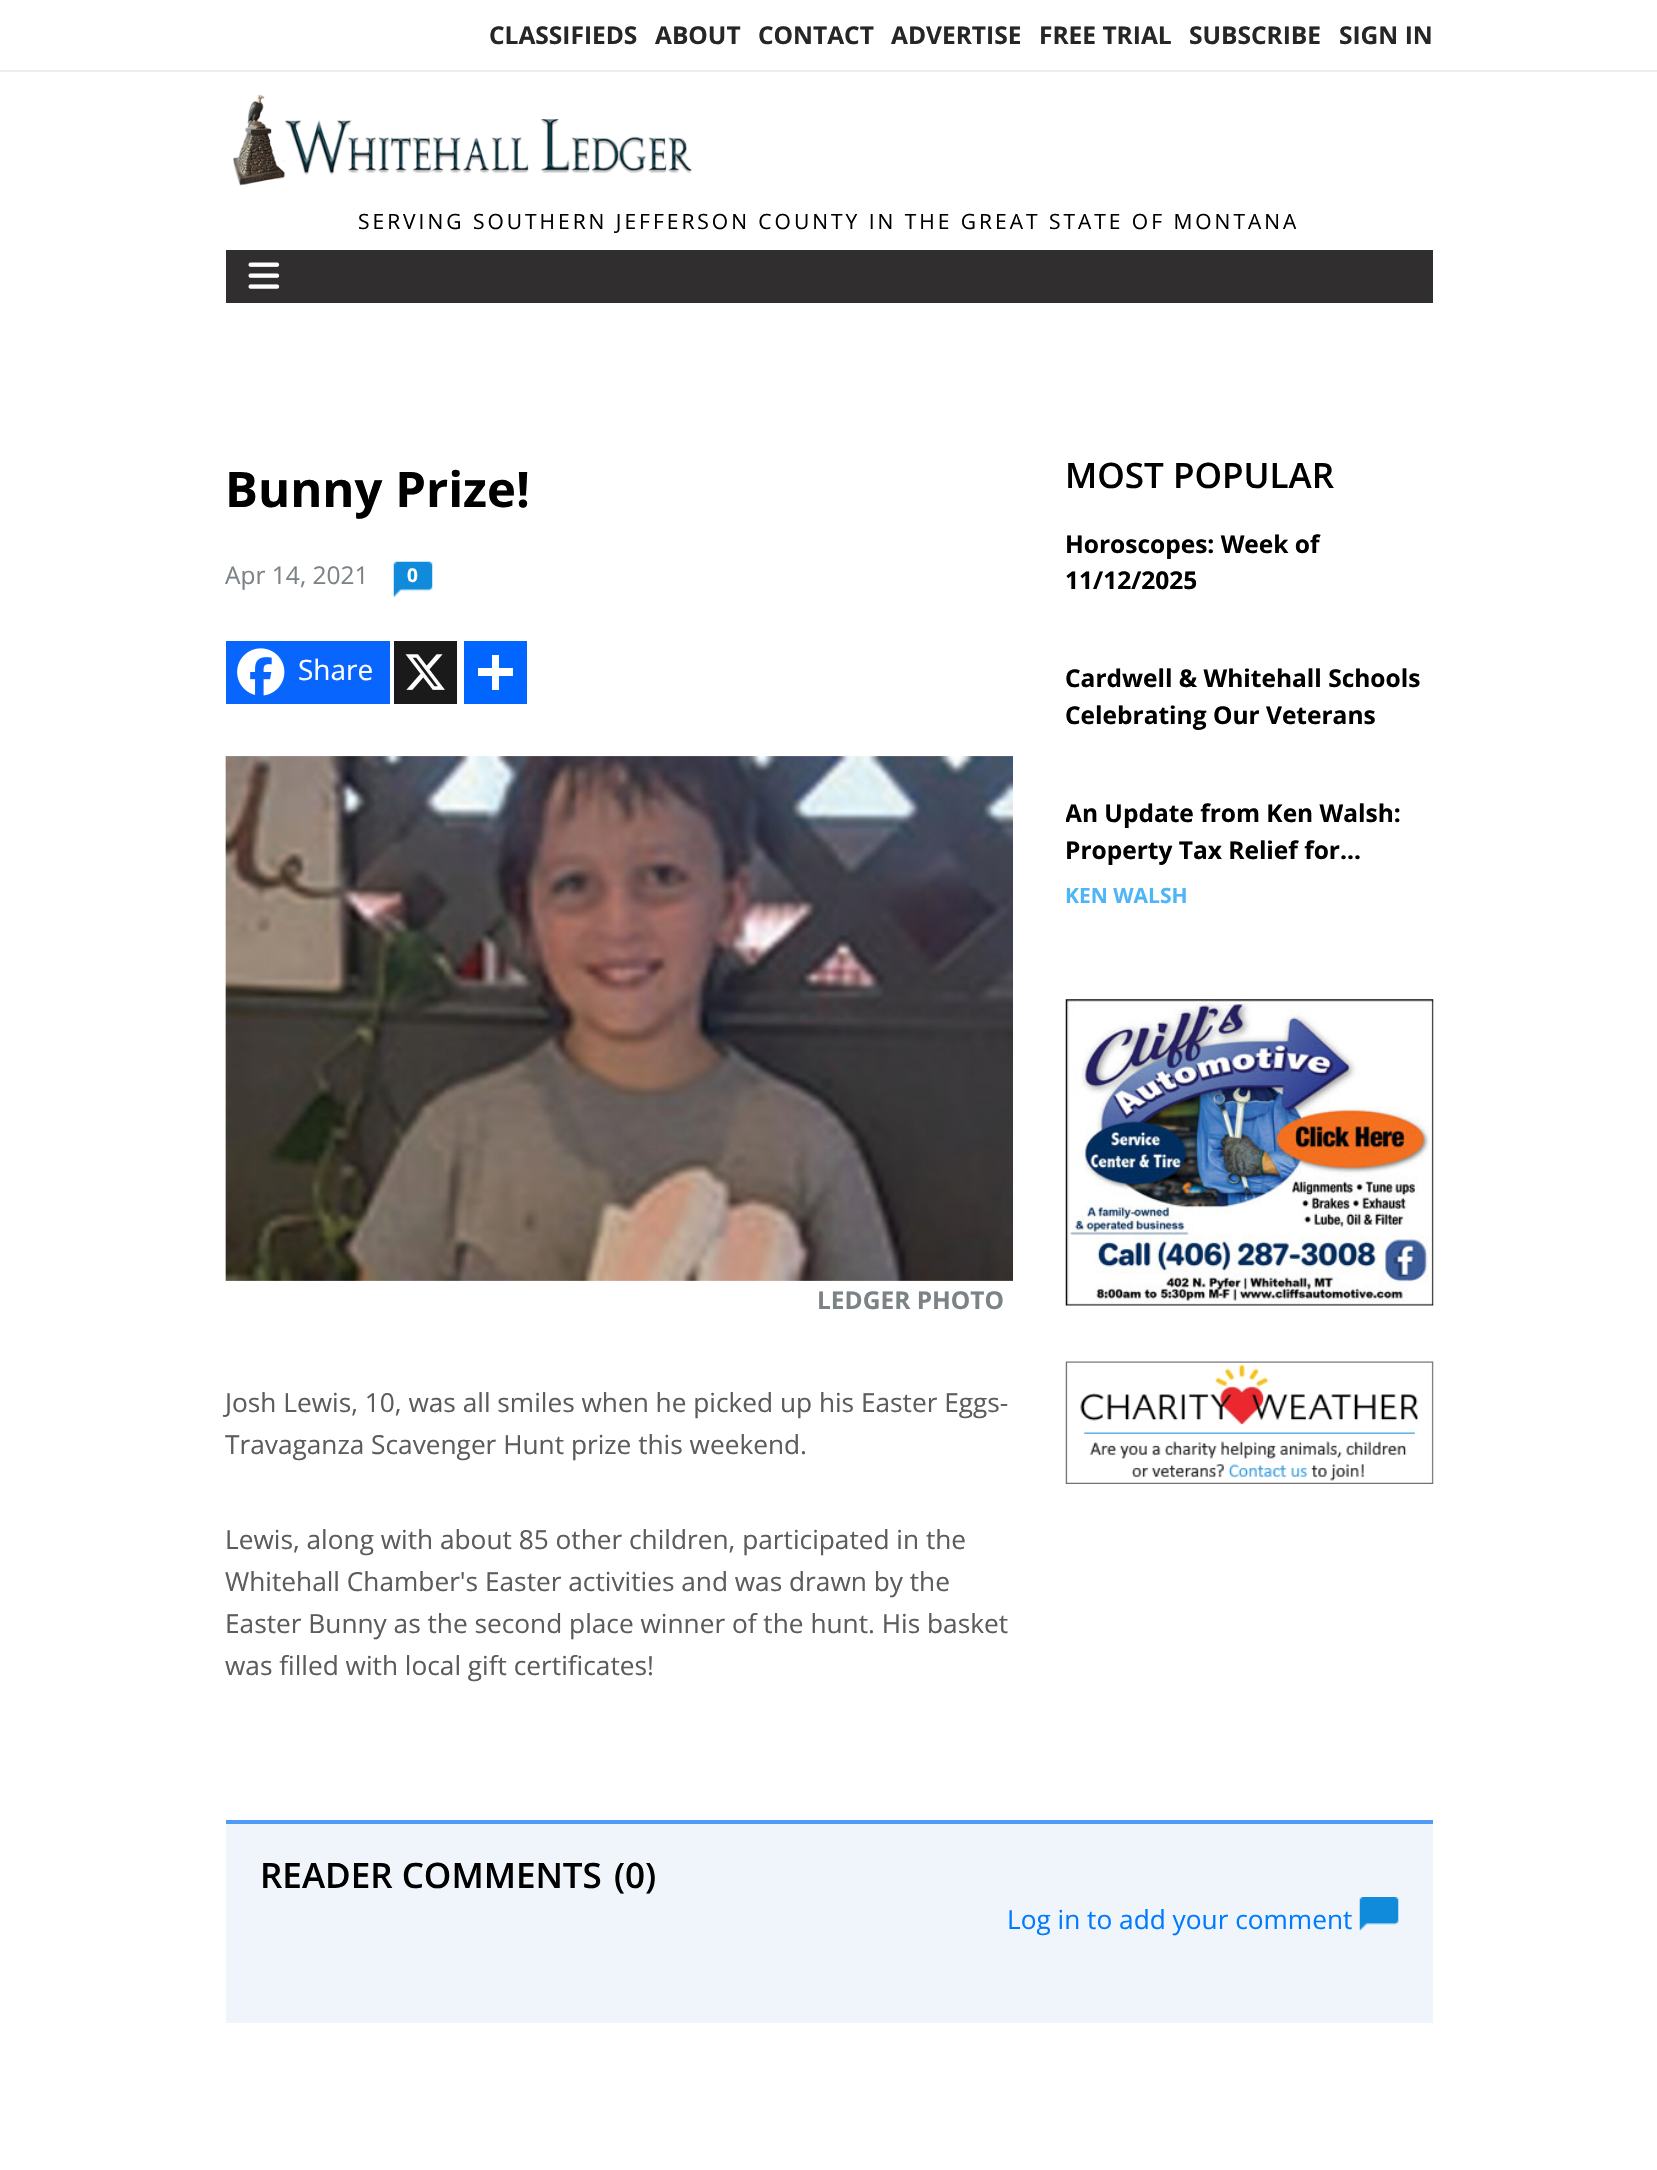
void draw(SkCanvas* canvas) {
	SkPaint fill;
	fill.setAntiAlias(true);
	auto makeFont = [&](const char* family, int weight, float size, bool italic = false) {
		SkFontStyle style(weight, SkFontStyle::kNormal_Width,
			italic ? SkFontStyle::kItalic_Slant : SkFontStyle::kUpright_Slant);
		SkFont result(fontMgr->matchFamilyStyle(family, style), size);
		result.setSubpixel(true);
		return result;
	};
	auto text = [&](const char* s, float x, float y, const SkFont& font) {
		canvas->drawString(s, x, y, font, fill);
	};
	auto spacedText = [&](const char* s, float x, float y, const SkFont& font, const SkPaint& ink, float letter, float word) {
		std::vector<SkGlyphID> glyphs(font.countText(s, strlen(s), SkTextEncoding::kUTF8));
		std::vector<float> xs(glyphs.size());
		font.textToGlyphs(s, strlen(s), SkTextEncoding::kUTF8, glyphs);
		font.getXPos(glyphs, xs, x);
		float extra = 0;
		for (size_t i = 0; i < glyphs.size(); i++) {
			xs[i] += extra;
			extra += letter + word * (glyphs[i] == font.unicharToGlyph(' '));
		}
		canvas->drawTextBlob(SkTextBlob::MakeFromPosHGlyphs(glyphs, xs, y, font), 0, 0, ink);
	};
	auto box = [&](float l, float t, float r, float b) {
		canvas->drawRect(SkRect::MakeLTRB(l, t, r, b), fill);
	};
	auto picture = [&](const char* path, float l, float t, float r, float b) {
		auto image = SkImages::DeferredFromEncodedData(SkData::MakeFromFileName(path));
		canvas->drawImageRect(image, SkRect::MakeLTRB(l, t, r, b), SkSamplingOptions());
	};
	canvas->clear(0xFFFFFFFF);
	fill.setColor(0xFFEDEDED);
	box(0, 70, 1657, 72);
	picture("image0.png", 233, 94, 692, 186);
	fill.setColor(0xFF312E2F);
	box(226, 250, 1433, 303);
	picture("image1.png", 248, 262, 280, 289);
	picture("image2.png", 393, 561, 433, 597);
	fill.setColor(0xFF0866FF);
	box(226, 641, 390, 704);
	picture("image3.png", 237, 648, 285, 696);
	fill.setColor(0xFF1A1A1A);
	box(394, 641, 457, 704);
	picture("image4.png", 405, 654, 445, 690);
	fill.setColor(0xFF0166FF);
	box(464, 641, 527, 704);
	fill.setColor(0xFFFFFFFF);
	box(492, 655, 499, 690);
	box(478, 668, 513, 676);
	picture("image5.png", 225, 756, 1013, 1281);
	picture("image6.png", 1065, 999, 1434, 1306);
	picture("image7.png", 1065, 1361, 1434, 1484);
	fill.setColor(0xFFF0F5FB);
	box(226, 1824, 1433, 2023);
	fill.setColor(0xFF509BF6);
	box(226, 1820, 1433, 1824);
	picture("image8.png", 1359, 1897, 1399, 1931);
	auto font1 = makeFont("Open Sans", 700, 24.5f);
	fill.setColor(0xFF262626);
	text("CLASSIFIEDS", 489, 44, font1);
	text("ABOUT", 655, 44, font1);
	text("CONTACT", 758, 44, font1);
	text("ADVERTISE", 891, 44, font1);
	text("FREE TRIAL", 1039, 44, font1);
	text("SUBSCRIBE", 1189, 44, font1);
	text("SIGN IN", 1339, 44, font1);
	auto font2 = makeFont("Open Sans", 400, 21);
	fill.setColor(0xFF000000);
	spacedText("SERVING SOUTHERN JEFFERSON COUNTY IN THE GREAT STATE OF MONTANA", 358, 229, font2, fill, 2.98f, 0);
	auto font3 = makeFont("Open Sans", 700, 49);
	text("Bunny Prize!", 225, 507, font3);
	auto font4 = makeFont("Open Sans", 400, 24.5f);
	fill.setColor(0xFF7C8387);
	text("Apr 14, 2021", 225, 584, font4);
	auto font5 = makeFont("Open Sans", 700, 19);
	fill.setColor(0xFFFFFFFF);
	text("0", 407, 582, font5);
	auto font6 = makeFont("Open Sans", 400, 28);
	text("Share", 298, 680, font6);
	fill.setColor(0xFF7C8387);
	text("LEDGER PHOTO", 817, 1309, font1);
	auto font7 = makeFont("Open Sans", 400, 26.25f);
	fill.setColor(0xFF5C5C5C);
	text("Josh Lewis, 10, was all smiles when he picked up his Easter Eggs-", 225, 1412, font7);
	text("Travaganza Scavenger Hunt prize this weekend.", 225, 1454, font7);
	text("Lewis, along with about 85 other children, participated in the", 225, 1549, font7);
	text("Whitehall Chamber's Easter activities and was drawn by the", 225, 1591, font7);
	text("Easter Bunny as the second place winner of the hunt. His basket", 225, 1633, font7);
	text("was filled with local gift certificates!", 225, 1675, font7);
	auto font8 = makeFont("Open Sans", 600, 35);
	fill.setColor(0xFF000000);
	text("MOST POPULAR", 1065, 488, font8);
	text("Horoscopes: Week of", 1065, 553, font1);
	text("11/12/2025", 1065, 589, font1);
	text("Cardwell & Whitehall Schools", 1065, 687, font1);
	text("Celebrating Our Veterans", 1065, 724, font1);
	canvas->save();
	canvas->clipRect(SkRect::MakeLTRB(1066, 795, 1433, 868));
	text("An Update from Ken Walsh:", 1065, 822, font1);
	canvas->restore();
	text("Property Tax Relief for…", 1065, 859, font1);
	auto font9 = makeFont("Open Sans", 700, 21);
	fill.setColor(0xFF50B5F6);
	text("KEN WALSH", 1065, 903, font9);
	fill.setColor(0xFF000000);
	text("READER COMMENTS", 260, 1888, font8);
	text("(0)", 614, 1888, font8);
	fill.setColor(0xFF007BFF);
	text("Log in to add your comment", 1007, 1929, font7);
}
